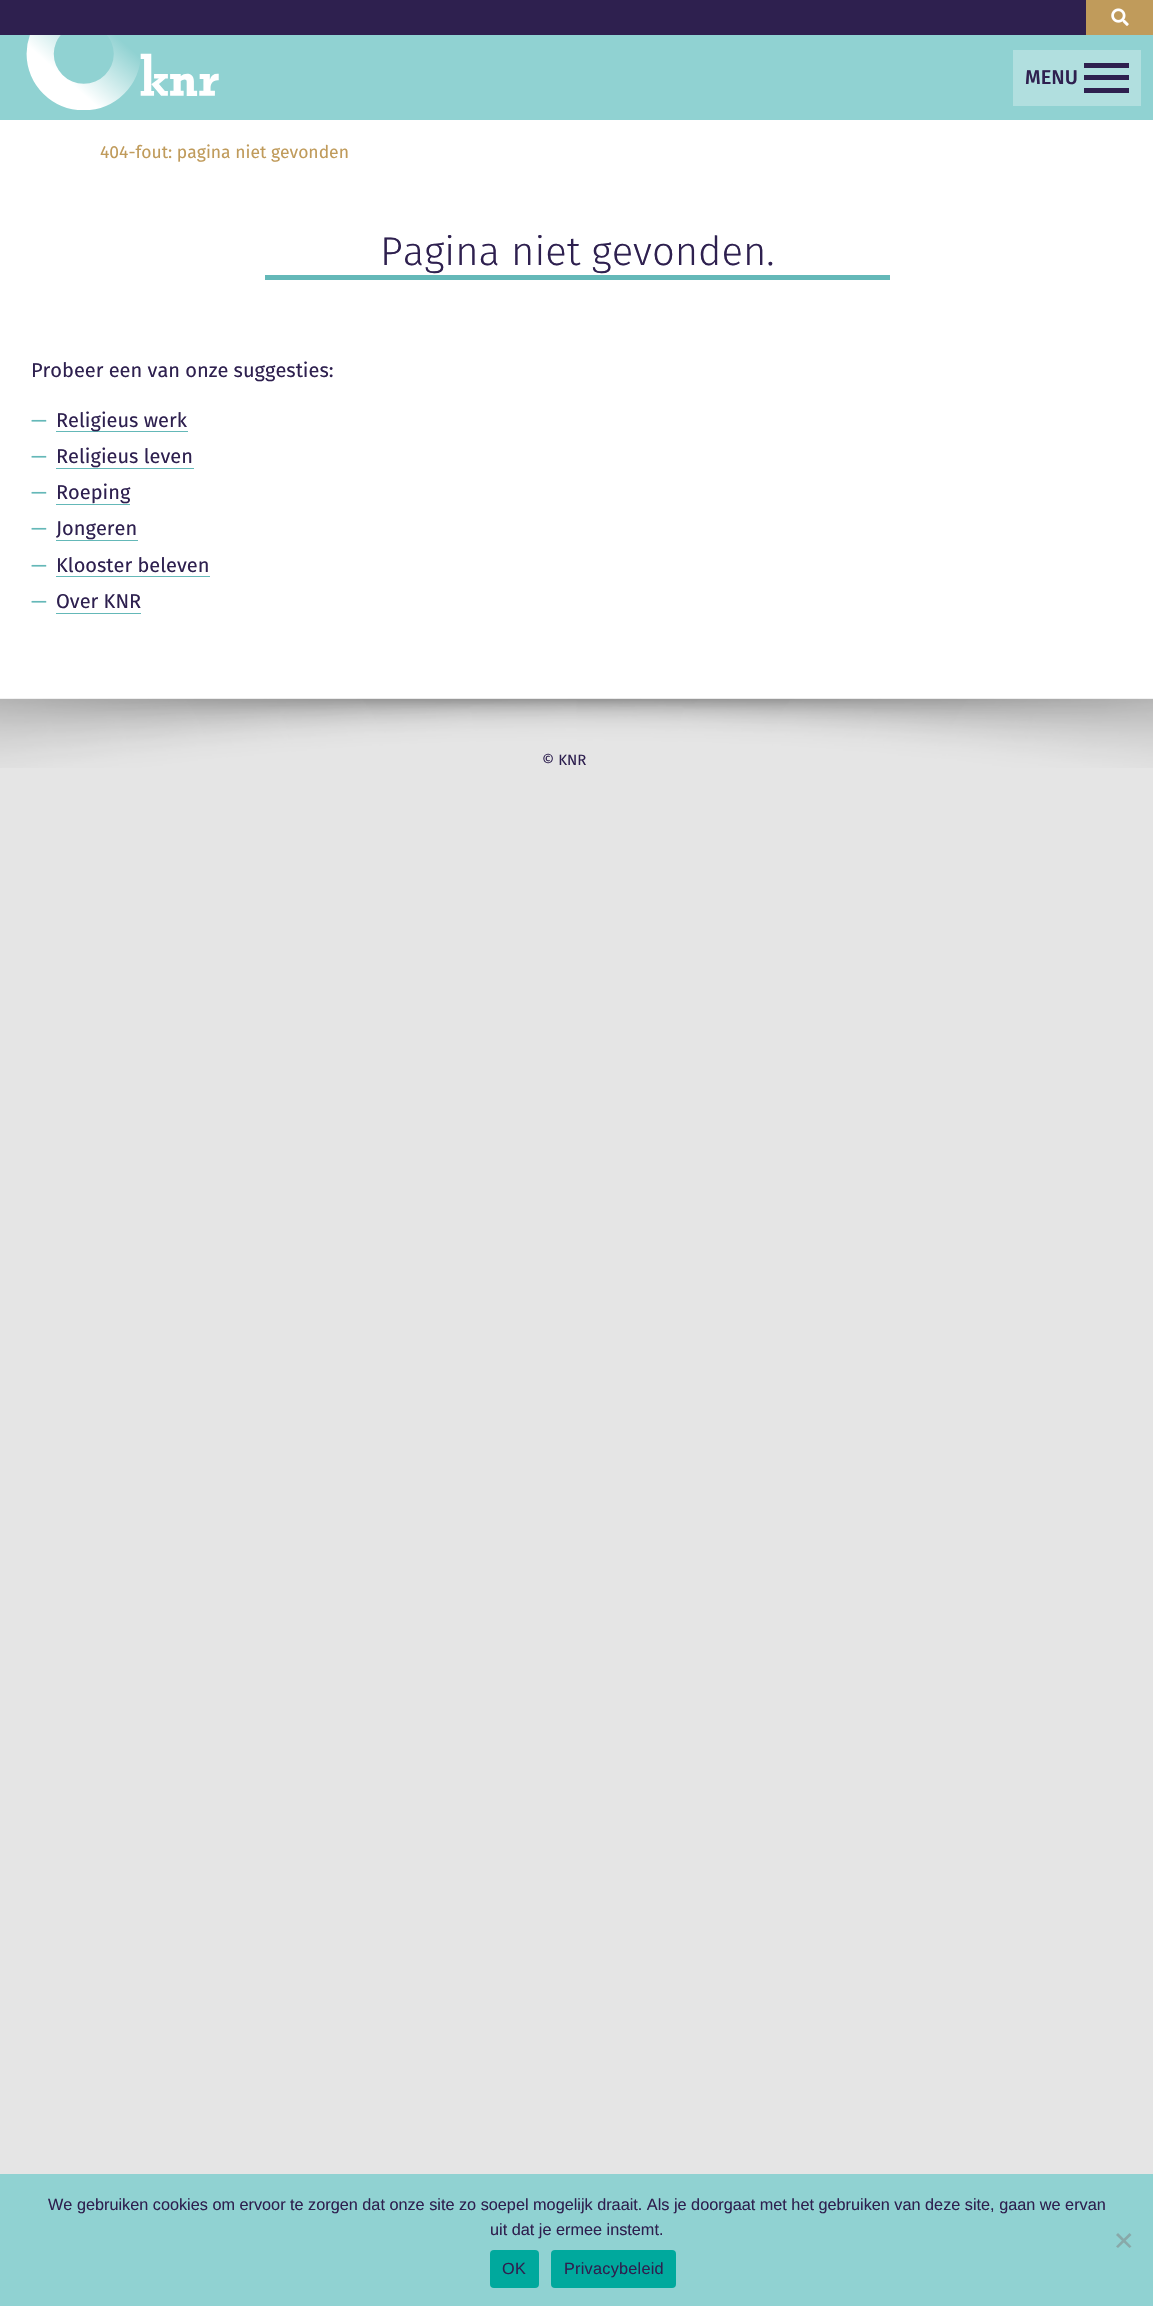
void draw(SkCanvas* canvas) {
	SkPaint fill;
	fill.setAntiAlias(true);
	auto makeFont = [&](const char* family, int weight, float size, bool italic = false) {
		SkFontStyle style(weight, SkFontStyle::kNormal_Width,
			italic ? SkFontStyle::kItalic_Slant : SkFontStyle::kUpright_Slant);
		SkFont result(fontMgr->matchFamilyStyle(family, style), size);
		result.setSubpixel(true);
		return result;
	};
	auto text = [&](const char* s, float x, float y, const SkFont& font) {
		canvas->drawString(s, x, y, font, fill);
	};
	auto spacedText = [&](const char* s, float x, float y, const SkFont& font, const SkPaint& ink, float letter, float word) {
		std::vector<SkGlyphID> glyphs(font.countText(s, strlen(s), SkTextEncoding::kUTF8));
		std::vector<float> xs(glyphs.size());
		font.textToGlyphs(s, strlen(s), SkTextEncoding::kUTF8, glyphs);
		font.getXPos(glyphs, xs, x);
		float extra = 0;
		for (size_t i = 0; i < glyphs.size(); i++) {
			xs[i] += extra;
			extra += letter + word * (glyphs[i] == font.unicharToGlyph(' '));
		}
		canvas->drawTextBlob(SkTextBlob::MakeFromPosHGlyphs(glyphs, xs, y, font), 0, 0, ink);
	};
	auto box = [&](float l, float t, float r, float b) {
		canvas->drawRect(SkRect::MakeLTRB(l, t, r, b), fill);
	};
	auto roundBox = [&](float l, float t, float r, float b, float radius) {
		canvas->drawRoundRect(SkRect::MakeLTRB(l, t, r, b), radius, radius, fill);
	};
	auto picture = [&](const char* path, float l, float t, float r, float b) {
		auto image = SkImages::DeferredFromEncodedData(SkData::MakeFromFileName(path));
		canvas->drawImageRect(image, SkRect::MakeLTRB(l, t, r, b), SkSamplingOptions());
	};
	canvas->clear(0xFFE5E5E5);
	fill.setColor(0xFF2E204F);
	box(0, 0, 1086, 35);
	fill.setColor(0xFFC09B5B);
	box(1086, 0, 1153, 35);
	picture("image0.png", 1111, 8, 1129, 26);
	fill.setColor(0xFF90D2D2);
	box(0, 35, 1153, 120);
	picture("image1.png", 26, 35, 219, 110);
	fill.setColor(0xFFB1DFDF);
	box(1013, 50, 1141, 106);
	fill.setColor(0xFF2E204F);
	box(1084, 63, 1129, 68);
	box(1084, 75, 1129, 80);
	box(1084, 88, 1129, 93);
	fill.setColor(0xFFFFFFFF);
	box(0, 120, 1153, 699);
	fill.setColor(0xFF64B8B8);
	box(265, 275, 890, 280);
	box(56, 431, 188, 432);
	box(56, 468, 194, 469);
	box(56, 504, 130, 505);
	box(56, 540, 138, 541);
	box(56, 576, 210, 577);
	box(56, 613, 141, 614);
	picture("image2.png", 0, 698, 1153, 768);
	fill.setColor(0xFF90D2D2);
	box(0, 2174, 1153, 2306);
	fill.setColor(0xFF88A9A9);
	canvas->drawPath(SkPathBuilder().moveTo(1129.5f, 2233).lineTo(1131.5f, 2235).lineTo(1118, 2248).lineTo(1116, 2246.5f).close().detach(), fill);
	canvas->drawPath(SkPathBuilder().moveTo(1116, 2235).lineTo(1118, 2233).lineTo(1131.5f, 2246.5f).lineTo(1129.5f, 2248).close().detach(), fill);
	fill.setColor(0xFF00A99D);
	roundBox(490, 2250, 539, 2288, 4);
	roundBox(551, 2250, 676, 2288, 4);
	auto font1 = makeFont("Fira Sans", 500, 20);
	fill.setColor(0xFF2E204F);
	text("MENU", 1025, 84, font1);
	auto font2 = makeFont("Fira Sans", 400, 17.5f);
	fill.setColor(0xFFC09B5B);
	text("404-fout: pagina niet gevonden", 100, 158, font2);
	auto font3 = makeFont("Fira Sans", 300, 40);
	fill.setColor(0xFF2E204F);
	text("Pagina niet gevonden.", 380, 265, font3);
	auto font4 = makeFont("Fira Sans", 400, 20);
	text("Probeer een van onze suggesties:", 31, 377, font4);
	fill.setColor(0xFF64B8B8);
	text("—", 31, 427, font4);
	fill.setColor(0xFF2E204F);
	text("Religieus werk", 56, 427, font4);
	fill.setColor(0xFF64B8B8);
	text("—", 31, 463, font4);
	fill.setColor(0xFF2E204F);
	text("Religieus leven", 56, 463, font4);
	fill.setColor(0xFF64B8B8);
	text("—", 31, 499, font4);
	fill.setColor(0xFF2E204F);
	text("Roeping", 56, 499, font4);
	fill.setColor(0xFF64B8B8);
	text("—", 31, 535, font4);
	fill.setColor(0xFF2E204F);
	text("Jongeren", 56, 535, font4);
	fill.setColor(0xFF64B8B8);
	text("—", 31, 572, font4);
	fill.setColor(0xFF2E204F);
	text("Klooster beleven", 56, 572, font4);
	fill.setColor(0xFF64B8B8);
	text("—", 31, 608, font4);
	fill.setColor(0xFF2E204F);
	text("Over KNR", 56, 608, font4);
	auto font5 = makeFont("Fira Sans", 400, 15);
	text("© KNR", 542, 765, font5);
	auto font6 = makeFont("Liberation Sans", 400, 16.25f);
	text("We gebruiken cookies om ervoor te zorgen dat onze site zo soepel mogelijk draait. Als je doorgaat met het gebruiken van deze site, gaan we ervan", 48, 2210, font6);
	text("uit dat je ermee instemt.", 490, 2235, font6);
	spacedText("OK", 502, 2274, font6, fill, 0.25f, 0);
	spacedText("Privacybeleid", 564, 2274, font6, fill, 0.25f, 0);
}
